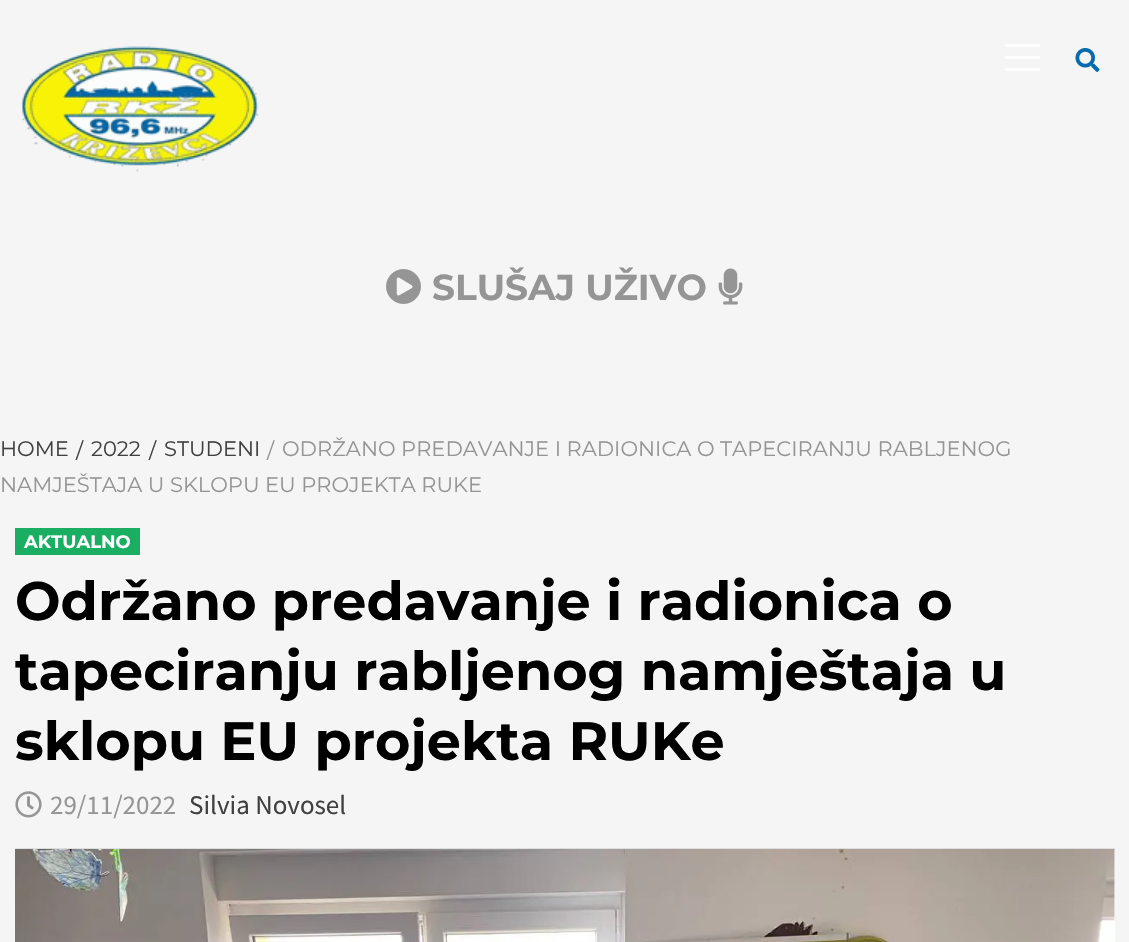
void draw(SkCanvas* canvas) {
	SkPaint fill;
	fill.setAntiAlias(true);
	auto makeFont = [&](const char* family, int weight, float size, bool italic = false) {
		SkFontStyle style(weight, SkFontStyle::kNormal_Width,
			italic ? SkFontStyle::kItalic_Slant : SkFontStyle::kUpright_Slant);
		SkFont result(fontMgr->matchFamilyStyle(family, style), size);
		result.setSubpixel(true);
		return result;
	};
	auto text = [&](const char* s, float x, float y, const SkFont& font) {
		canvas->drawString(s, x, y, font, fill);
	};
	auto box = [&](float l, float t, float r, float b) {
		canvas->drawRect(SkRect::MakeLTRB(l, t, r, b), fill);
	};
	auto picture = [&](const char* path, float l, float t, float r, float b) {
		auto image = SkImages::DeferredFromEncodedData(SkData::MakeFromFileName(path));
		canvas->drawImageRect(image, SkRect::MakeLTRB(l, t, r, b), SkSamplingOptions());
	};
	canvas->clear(0xFFF5F5F5);
	picture("image0.png", 22, 46, 259, 172);
	fill.setColor(0xFFFFFFFF);
	box(1005, 56, 1040, 59);
	box(1005, 44, 1040, 47);
	box(1005, 68, 1040, 71);
	picture("image1.png", 1075, 48, 1100, 72);
	picture("image2.png", 386, 269, 421, 304);
	picture("image3.png", 718, 268, 743, 305);
	box(1114, 850, 1115, 942);
	fill.setColor(0xFFE6E6E6);
	box(1114, 849, 1115, 850);
	fill.setColor(0xFFDEDEDE);
	box(15, 848, 1115, 849);
	fill.setColor(0xFF19AE62);
	box(15, 528, 140, 555);
	picture("image4.png", 15, 791, 42, 818);
	picture("image5.png", 15, 849, 1115, 942);
	auto font1 = makeFont("Montserrat", 700, 36);
	fill.setColor(0xFF959595);
	text("SLUŠAJ UŽIVO", 432, 300, font1);
	auto font2 = makeFont("Montserrat", 400, 21);
	text("/", 267, 458, font2);
	text("ODRŽANO PREDAVANJE I RADIONICA O TAPECIRANJU RABLJENOG", 282, 456, font2);
	text("NAMJEŠTAJA U SKLOPU EU PROJEKTA RUKE", 0, 492, font2);
	fill.setColor(0xFF404040);
	text("HOME", 0, 456, font2);
	text("/", 76, 458, font2);
	text("2022", 91, 456, font2);
	text("/", 149, 458, font2);
	text("STUDENI", 164, 456, font2);
	auto font3 = makeFont("Montserrat", 700, 18);
	fill.setColor(0xFFFEFEFE);
	text("AKTUALNO", 24, 548, font3);
	auto font4 = makeFont("Montserrat", 700, 54);
	fill.setColor(0xFF000000);
	text("Održano predavanje i radionica o", 15, 620, font4);
	text("tapeciranju rabljenog namještaja u", 15, 690, font4);
	text("sklopu EU projekta RUKe", 15, 760, font4);
	auto font5 = makeFont("Source Sans Pro", 400, 27);
	fill.setColor(0xFF959595);
	text("29/11/2022", 50, 814, font5);
	fill.setColor(0xFF404040);
	text("Silvia Novosel", 189, 814, font5);
}
